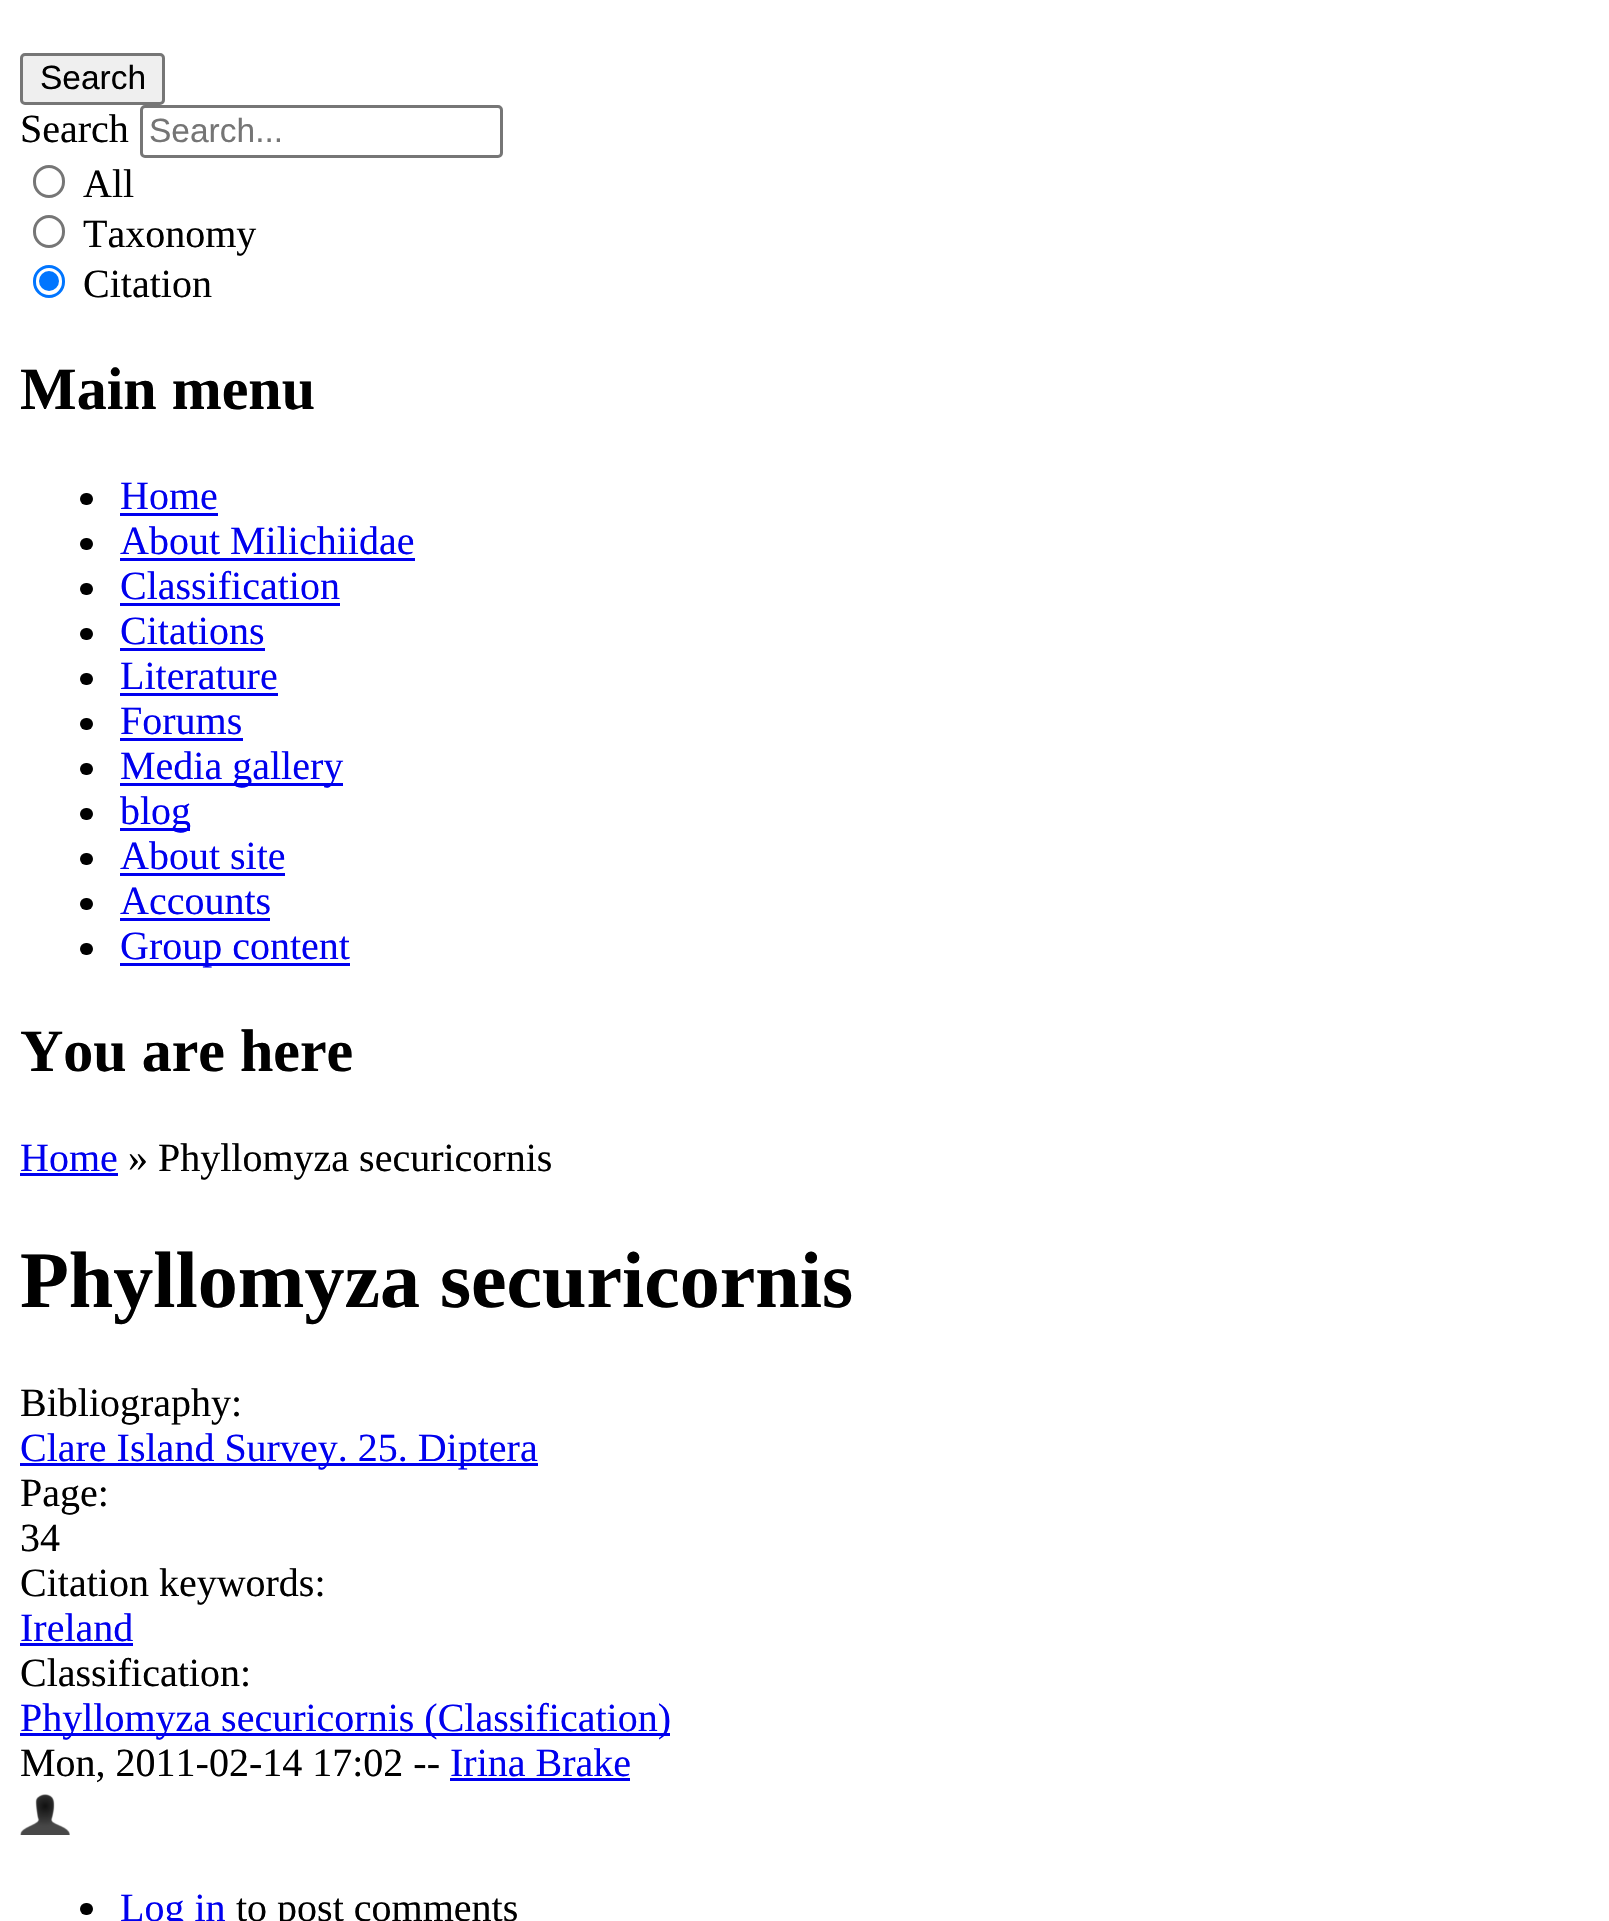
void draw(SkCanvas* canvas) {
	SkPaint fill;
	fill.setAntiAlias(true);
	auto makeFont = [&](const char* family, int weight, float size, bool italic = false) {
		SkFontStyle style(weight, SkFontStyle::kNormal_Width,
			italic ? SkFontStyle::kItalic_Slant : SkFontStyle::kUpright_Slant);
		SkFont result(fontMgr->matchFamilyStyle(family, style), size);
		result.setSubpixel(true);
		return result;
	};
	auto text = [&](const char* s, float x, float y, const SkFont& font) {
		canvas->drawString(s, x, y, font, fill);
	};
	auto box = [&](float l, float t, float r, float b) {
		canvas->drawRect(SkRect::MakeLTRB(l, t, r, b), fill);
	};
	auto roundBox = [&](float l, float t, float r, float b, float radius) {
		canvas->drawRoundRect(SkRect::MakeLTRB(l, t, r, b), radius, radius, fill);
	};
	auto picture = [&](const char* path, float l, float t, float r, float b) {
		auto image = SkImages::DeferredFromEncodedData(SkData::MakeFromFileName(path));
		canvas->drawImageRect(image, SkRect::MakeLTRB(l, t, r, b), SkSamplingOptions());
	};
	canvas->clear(0xFFFFFFFF);
	fill.setColor(0xFFEFEFEF);
	canvas->drawRoundRect(SkRect::MakeLTRB(21.5f, 54.5f, 163.5f, 103.5f), 3.5f, 3.5f, fill);
	fill.setStyle(SkPaint::kStroke_Style);
	fill.setStrokeWidth(3);
	fill.setColor(0xFF767676);
	canvas->drawRoundRect(SkRect::MakeLTRB(21.5f, 54.5f, 163.5f, 103.5f), 3.5f, 3.5f, fill);
	canvas->drawRoundRect(SkRect::MakeLTRB(141.5f, 106.5f, 501.5f, 156.5f), 3.5f, 3.5f, fill);
	canvas->drawRoundRect(SkRect::MakeLTRB(34.5f, 166.5f, 63.5f, 196.5f), 14.5f, 14.5f, fill);
	canvas->drawRoundRect(SkRect::MakeLTRB(34.5f, 216.5f, 63.5f, 246.5f), 14.5f, 14.5f, fill);
	fill.setColor(0xFF0075FF);
	canvas->drawRoundRect(SkRect::MakeLTRB(34.5f, 266.5f, 63.5f, 296.5f), 14.5f, 14.5f, fill);
	fill.setStyle(SkPaint::kFill_Style);
	canvas->drawCircle(49, 281, 10, fill);
	fill.setColor(0xFF000000);
	roundBox(80, 493, 93, 505, 6);
	fill.setColor(0xFF0000EE);
	box(120, 513, 218, 516);
	fill.setColor(0xFF000000);
	roundBox(80, 538, 93, 550, 6);
	fill.setColor(0xFF0000EE);
	box(120, 558, 415, 561);
	fill.setColor(0xFF000000);
	roundBox(80, 583, 93, 595, 6);
	fill.setColor(0xFF0000EE);
	box(120, 603, 340, 606);
	fill.setColor(0xFF000000);
	roundBox(80, 628, 93, 640, 6);
	fill.setColor(0xFF0000EE);
	box(120, 648, 265, 651);
	fill.setColor(0xFF000000);
	roundBox(80, 673, 93, 685, 6);
	fill.setColor(0xFF0000EE);
	box(120, 693, 278, 696);
	fill.setColor(0xFF000000);
	roundBox(80, 718, 93, 730, 6);
	fill.setColor(0xFF0000EE);
	box(120, 738, 243, 741);
	fill.setColor(0xFF000000);
	roundBox(80, 763, 93, 775, 6);
	fill.setColor(0xFF0000EE);
	box(120, 783, 343, 786);
	fill.setColor(0xFF000000);
	roundBox(80, 808, 93, 820, 6);
	fill.setColor(0xFF0000EE);
	box(120, 828, 190, 831);
	fill.setColor(0xFF000000);
	roundBox(80, 853, 93, 865, 6);
	fill.setColor(0xFF0000EE);
	box(120, 873, 285, 876);
	fill.setColor(0xFF000000);
	roundBox(80, 898, 93, 910, 6);
	fill.setColor(0xFF0000EE);
	box(120, 918, 270, 921);
	fill.setColor(0xFF000000);
	roundBox(80, 943, 93, 955, 6);
	fill.setColor(0xFF0000EE);
	box(120, 963, 350, 966);
	box(20, 1173, 118, 1176);
	box(20, 1463, 538, 1466);
	box(20, 1643, 133, 1646);
	box(20, 1733, 670, 1736);
	box(450, 1778, 630, 1781);
	picture("image0.png", 20, 1794, 70, 1835);
	fill.setColor(0xFF000000);
	roundBox(80, 1903, 93, 1915, 6);
	auto font1 = makeFont("Liberation Sans", 400, 33.5f);
	text("Search", 40, 89, font1);
	auto font2 = makeFont("Liberation Serif", 400, 40);
	text("Search", 20, 142, font2);
	fill.setColor(0xFF757575);
	text("Search...", 149, 142, font1);
	fill.setColor(0xFF000000);
	text("All", 83, 197, font2);
	text("Taxonomy", 83, 247, font2);
	text("Citation", 83, 297, font2);
	auto font3 = makeFont("Liberation Serif", 700, 60);
	text("Main menu", 20, 409, font3);
	fill.setColor(0xFF0000EE);
	text("Home", 120, 509, font2);
	text("About Milichiidae", 120, 554, font2);
	text("Classification", 120, 599, font2);
	text("Citations", 120, 644, font2);
	text("Literature", 120, 689, font2);
	text("Forums", 120, 734, font2);
	text("Media gallery", 120, 779, font2);
	text("blog", 120, 824, font2);
	text("About site", 120, 869, font2);
	text("Accounts", 120, 914, font2);
	text("Group content", 120, 959, font2);
	fill.setColor(0xFF000000);
	text("You are here", 20, 1071, font3);
	fill.setColor(0xFF0000EE);
	text("Home", 20, 1171, font2);
	fill.setColor(0xFF000000);
	text("» Phyllomyza securicornis", 128, 1171, font2);
	auto font4 = makeFont("Liberation Serif", 700, 80);
	text("Phyllomyza securicornis", 20, 1307, font4);
	text("Bibliography:", 20, 1416, font2);
	fill.setColor(0xFF0000EE);
	text("Clare Island Survey. 25. Diptera", 20, 1461, font2);
	fill.setColor(0xFF000000);
	text("Page:", 20, 1506, font2);
	text("34", 20, 1551, font2);
	text("Citation keywords:", 20, 1596, font2);
	fill.setColor(0xFF0000EE);
	text("Ireland", 20, 1641, font2);
	fill.setColor(0xFF000000);
	text("Classification:", 20, 1686, font2);
	fill.setColor(0xFF0000EE);
	text("Phyllomyza securicornis (Classification)", 20, 1731, font2);
	fill.setColor(0xFF000000);
	text("Mon, 2011-02-14 17:02 --", 20, 1776, font2);
	fill.setColor(0xFF0000EE);
	text("Irina Brake", 450, 1776, font2);
	text("Log in", 120, 1921, font2);
	fill.setColor(0xFF000000);
	text("to post comments", 236, 1921, font2);
}
